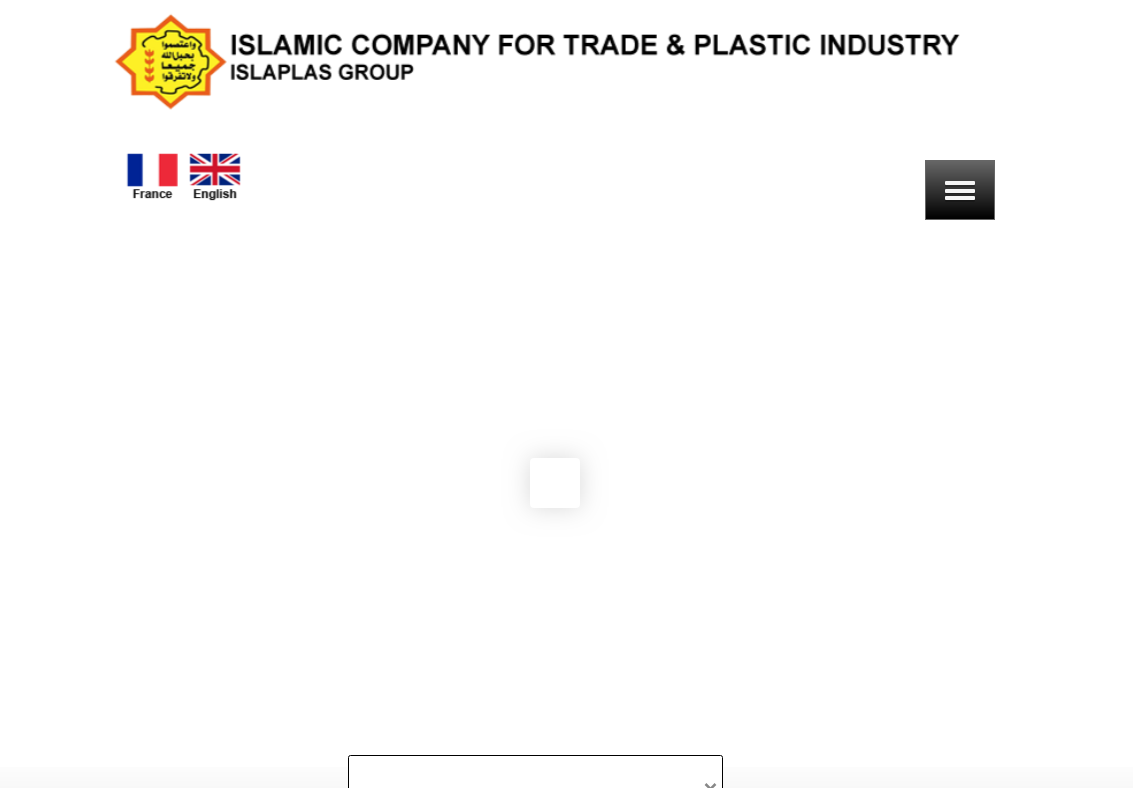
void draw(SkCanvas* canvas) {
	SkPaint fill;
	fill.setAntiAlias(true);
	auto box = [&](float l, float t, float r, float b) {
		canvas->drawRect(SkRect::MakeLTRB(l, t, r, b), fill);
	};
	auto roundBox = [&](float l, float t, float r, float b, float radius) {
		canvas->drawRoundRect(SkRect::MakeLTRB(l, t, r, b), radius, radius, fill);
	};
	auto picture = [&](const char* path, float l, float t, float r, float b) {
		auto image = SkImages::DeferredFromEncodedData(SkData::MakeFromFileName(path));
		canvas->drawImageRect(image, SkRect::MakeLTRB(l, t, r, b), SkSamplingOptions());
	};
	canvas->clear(0xFFFFFFFF);
	picture("image0.png", 114, 13, 960, 110);
	picture("image1.png", 126, 153, 178, 199);
	picture("image2.png", 189, 153, 241, 201);
	{
		const SkColor colors[] = {0xFF666666, 0xFF000000};
		const float stops[] = {0, 1};
		const SkPoint ends[] = {{960, 161}, {960, 219}};
		fill.setShader(SkGradientShader::MakeLinear(ends, colors, stops, 2, SkTileMode::kClamp));
		fill.setAlpha(255);
	}
	box(926, 161, 994, 219);
	fill.setStyle(SkPaint::kStroke_Style);
	fill.setStrokeWidth(1);
	fill.setShader(nullptr);
	fill.setColor(0xFF666666);
	canvas->drawRect(SkRect::MakeLTRB(925.5f, 160.5f, 994.5f, 219.5f), fill);
	fill.setStyle(SkPaint::kFill_Style);
	fill.setColor(0xFF2C2C2C);
	canvas->drawPath(SkPathBuilder().moveTo(945, 184).cubicTo(944.5f, 188.5f, 946.5f, 187, 950.5f, 187).lineTo(969.5f, 187).cubicTo(973.5f, 187, 975.5f, 188.5f, 975, 184).cubicTo(975, 184.5f, 974.5f, 185, 974, 185).lineTo(946, 185).cubicTo(945.5f, 185, 945, 184.5f, 945, 184).close().detach(), fill);
	fill.setColor(0xFFF5F5F5);
	roundBox(945, 181, 975, 185, 1);
	fill.setColor(0xFF222222);
	canvas->drawPath(SkPathBuilder().moveTo(945, 191).cubicTo(945, 195.5f, 946, 194, 950.5f, 194).lineTo(969.5f, 194).cubicTo(974, 194, 975, 195.5f, 975, 191).cubicTo(975, 192, 974.5f, 192.5f, 974, 192.5f).lineTo(946, 192.5f).cubicTo(945.5f, 192.5f, 945, 192, 945, 191).close().detach(), fill);
	fill.setColor(0xFFF5F5F5);
	roundBox(945, 189, 975, 193, 1);
	fill.setColor(0xFF181818);
	canvas->drawPath(SkPathBuilder().moveTo(945, 199).cubicTo(944.5f, 203.5f, 946.5f, 202, 950.5f, 202).lineTo(969.5f, 202).cubicTo(973.5f, 202, 975.5f, 203.5f, 975, 199).cubicTo(975, 199.5f, 974.5f, 200, 974, 200).lineTo(946, 200).cubicTo(945.5f, 200, 945, 199.5f, 945, 199).close().detach(), fill);
	fill.setColor(0xFFF5F5F5);
	roundBox(945, 196, 975, 200, 1);
	fill.setColor(0x26000000);
	fill.setMaskFilter(SkMaskFilter::MakeBlur(kNormal_SkBlurStyle, 12.5f));
	canvas->drawRoundRect(SkRect::MakeLTRB(530, 458, 580, 508), 4, 4, fill);
	fill.setMaskFilter(nullptr);
	fill.setColor(0xFFFFFFFF);
	roundBox(530, 458, 580, 508, 4);
	{
		const SkColor colors[] = {0xFFFFFFFF, 0xFFCCCCCC, 0xFFFFFFFF, 0xFFCCCCCC, 0xFFFFFFFF};
		const float stops[] = {0, 0.25f, 0.5f, 0.75f, 1};
		const SkPoint ends[] = {{567, 755}, {567, 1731}};
		fill.setShader(SkGradientShader::MakeLinear(ends, colors, stops, 5, SkTileMode::kClamp));
		fill.setAlpha(255);
	}
	box(0, 767, 1133, 788);
	fill.setShader(nullptr);
	fill.setColor(0xFFFFFFFF);
	canvas->drawRoundRect(SkRect::MakeLTRB(348.5f, 755.5f, 722.5f, 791.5f), 2, 2, fill);
	fill.setStyle(SkPaint::kStroke_Style);
	fill.setColor(0xFF000000);
	canvas->drawRoundRect(SkRect::MakeLTRB(348.5f, 755.5f, 722.5f, 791.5f), 2, 2, fill);
	fill.setStrokeWidth(2.5f);
	fill.setColor(0xFF888888);
	canvas->drawPath(SkPathBuilder().moveTo(705.5f, 784).lineTo(710.5f, 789).lineTo(715.5f, 784).detach(), fill);
}
